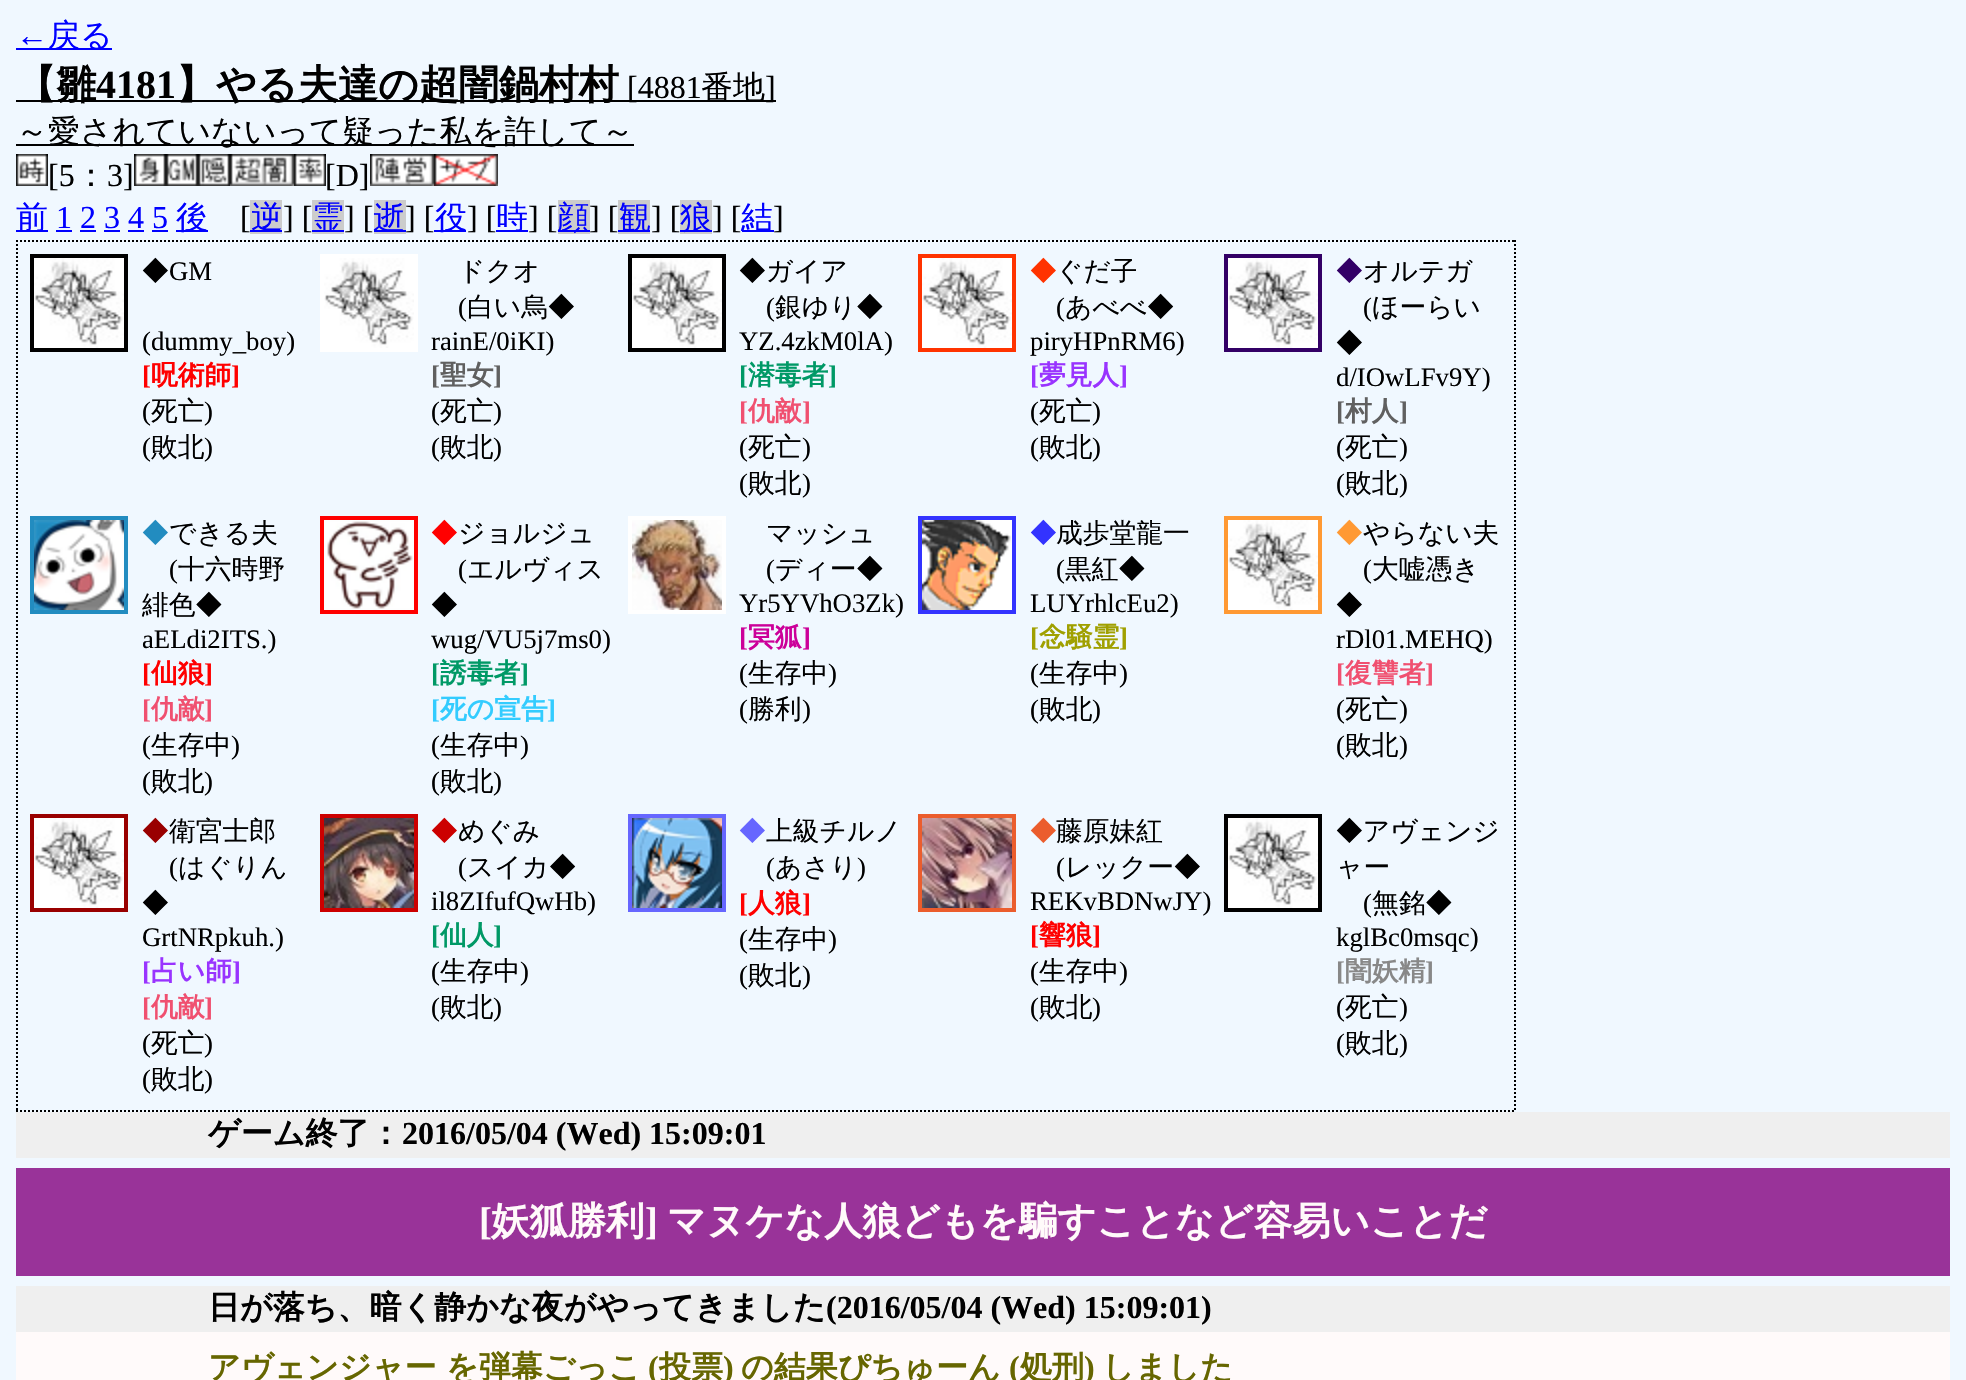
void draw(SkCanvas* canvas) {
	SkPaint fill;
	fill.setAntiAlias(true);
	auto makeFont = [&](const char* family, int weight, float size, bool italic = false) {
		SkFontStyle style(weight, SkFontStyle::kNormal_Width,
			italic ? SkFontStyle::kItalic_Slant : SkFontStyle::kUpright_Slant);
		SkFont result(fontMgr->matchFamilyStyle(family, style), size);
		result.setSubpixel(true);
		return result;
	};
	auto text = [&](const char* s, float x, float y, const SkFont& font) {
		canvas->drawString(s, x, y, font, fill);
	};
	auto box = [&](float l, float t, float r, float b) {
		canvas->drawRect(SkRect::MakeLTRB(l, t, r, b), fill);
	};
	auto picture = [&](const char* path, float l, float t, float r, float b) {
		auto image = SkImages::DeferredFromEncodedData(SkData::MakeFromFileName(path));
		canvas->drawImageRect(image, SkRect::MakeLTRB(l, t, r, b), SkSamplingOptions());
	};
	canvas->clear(0xFFF0F8FF);
	fill.setColor(0xFF0000FF);
	box(16, 48, 112, 50);
	fill.setColor(0xFF000000);
	box(16, 100, 776, 102);
	box(16, 144, 634, 146);
	picture("image0.png", 16, 154, 48, 186);
	picture("image1.png", 134, 154, 166, 186);
	picture("image2.png", 166, 154, 198, 186);
	picture("image3.png", 198, 154, 230, 186);
	picture("image4.png", 230, 154, 294, 186);
	picture("image5.png", 294, 154, 326, 186);
	picture("image6.png", 370, 154, 434, 186);
	picture("image7.png", 434, 154, 498, 186);
	fill.setColor(0xFF0000FF);
	box(16, 230, 48, 232);
	box(56, 230, 72, 232);
	box(176, 230, 208, 232);
	fill.setColor(0xFFCCCCCC);
	box(250, 200, 282, 234);
	fill.setColor(0xFF0000FF);
	box(250, 230, 282, 232);
	fill.setColor(0xFFCCCCCC);
	box(312, 200, 344, 234);
	fill.setColor(0xFF0000FF);
	box(312, 230, 344, 232);
	fill.setColor(0xFFCCCCCC);
	box(374, 200, 406, 234);
	fill.setColor(0xFF0000FF);
	box(374, 230, 406, 232);
	box(434, 230, 466, 232);
	box(496, 230, 528, 232);
	fill.setColor(0xFFCCCCCC);
	box(558, 200, 590, 234);
	fill.setColor(0xFF0000FF);
	box(558, 230, 590, 232);
	fill.setColor(0xFFCCCCCC);
	box(618, 200, 650, 234);
	fill.setColor(0xFF0000FF);
	box(618, 230, 650, 232);
	fill.setColor(0xFFCCCCCC);
	box(680, 200, 712, 234);
	fill.setColor(0xFF0000FF);
	box(680, 230, 712, 232);
	box(742, 230, 774, 232);
	box(80, 230, 96, 232);
	box(104, 230, 120, 232);
	box(128, 230, 144, 232);
	box(152, 230, 168, 232);
	fill.setStyle(SkPaint::kStroke_Style);
	fill.setStrokeWidth(2);
	fill.setColor(0xFF000000);
	fill.setPathEffect(SkDashPathEffect::Make({{2, 2}}, 0));
	canvas->drawPath(SkPathBuilder().moveTo(16, 241).lineTo(1516, 241).detach(), fill);
	fill.setPathEffect(nullptr);
	fill.setPathEffect(SkDashPathEffect::Make({{2, 2}}, 0));
	canvas->drawPath(SkPathBuilder().moveTo(1515, 240).lineTo(1515, 1112).detach(), fill);
	fill.setPathEffect(nullptr);
	fill.setPathEffect(SkDashPathEffect::Make({{2, 2}}, 0));
	canvas->drawPath(SkPathBuilder().moveTo(16, 1111).lineTo(1516, 1111).detach(), fill);
	fill.setPathEffect(nullptr);
	fill.setPathEffect(SkDashPathEffect::Make({{2, 2}}, 0));
	canvas->drawPath(SkPathBuilder().moveTo(17, 240).lineTo(17, 1112).detach(), fill);
	fill.setPathEffect(nullptr);
	fill.setStrokeWidth(4);
	canvas->drawRect(SkRect::MakeLTRB(32, 256, 126, 350), fill);
	picture("image8.png", 34, 258, 124, 348);
	fill.setColor(0xFFFFFFFF);
	canvas->drawRect(SkRect::MakeLTRB(322, 256, 416, 350), fill);
	picture("image8.png", 324, 258, 414, 348);
	fill.setColor(0xFF000000);
	canvas->drawRect(SkRect::MakeLTRB(630, 256, 724, 350), fill);
	picture("image8.png", 632, 258, 722, 348);
	fill.setColor(0xFFFF3300);
	canvas->drawRect(SkRect::MakeLTRB(920, 256, 1014, 350), fill);
	picture("image8.png", 922, 258, 1012, 348);
	fill.setColor(0xFF330066);
	canvas->drawRect(SkRect::MakeLTRB(1226, 256, 1320, 350), fill);
	picture("image8.png", 1228, 258, 1318, 348);
	fill.setColor(0xFF228CC0);
	canvas->drawRect(SkRect::MakeLTRB(32, 518, 126, 612), fill);
	picture("image9.png", 34, 520, 124, 610);
	fill.setColor(0xFFFF0000);
	canvas->drawRect(SkRect::MakeLTRB(322, 518, 416, 612), fill);
	picture("image10.png", 324, 520, 414, 610);
	fill.setColor(0xFFFFFFFF);
	canvas->drawRect(SkRect::MakeLTRB(630, 518, 724, 612), fill);
	picture("image11.png", 632, 520, 722, 610);
	fill.setColor(0xFF3333FF);
	canvas->drawRect(SkRect::MakeLTRB(920, 518, 1014, 612), fill);
	picture("image12.png", 922, 520, 1012, 610);
	fill.setColor(0xFFFF9933);
	canvas->drawRect(SkRect::MakeLTRB(1226, 518, 1320, 612), fill);
	picture("image8.png", 1228, 520, 1318, 610);
	fill.setColor(0xFF990000);
	canvas->drawRect(SkRect::MakeLTRB(32, 816, 126, 910), fill);
	picture("image13.png", 34, 818, 124, 908);
	fill.setColor(0xFFCC0000);
	canvas->drawRect(SkRect::MakeLTRB(322, 816, 416, 910), fill);
	picture("image14.png", 324, 818, 414, 908);
	fill.setColor(0xFF6666FF);
	canvas->drawRect(SkRect::MakeLTRB(630, 816, 724, 910), fill);
	picture("image15.png", 632, 818, 722, 908);
	fill.setColor(0xFFEB5D2D);
	canvas->drawRect(SkRect::MakeLTRB(920, 816, 1014, 910), fill);
	picture("image16.png", 922, 818, 1012, 908);
	fill.setColor(0xFF000000);
	canvas->drawRect(SkRect::MakeLTRB(1226, 816, 1320, 910), fill);
	picture("image13.png", 1228, 818, 1318, 908);
	fill.setStyle(SkPaint::kFill_Style);
	fill.setColor(0xFFEFEFEF);
	box(16, 1112, 1950, 1158);
	fill.setColor(0xFF993399);
	box(16, 1168, 1950, 1276);
	fill.setColor(0xFFEFEFEF);
	box(16, 1286, 1950, 1332);
	fill.setColor(0xFFFFFAFA);
	box(16, 1332, 1950, 1380);
	auto font1 = makeFont("Liberation Serif", 400, 32);
	fill.setColor(0xFF0000FF);
	text("←", 16, 46, font1);
	auto font2 = makeFont("WenQuanYi Zen Hei", 500, 32);
	text("戻る", 48, 46, font2);
	auto font3 = makeFont("WenQuanYi Zen Hei", 700, 40);
	fill.setColor(0xFF000000);
	text("【雛", 16, 98, font3);
	auto font4 = makeFont("Liberation Serif", 700, 40);
	text("4181", 96, 98, font4);
	text("】やる夫達の超闇鍋村村", 176, 98, font3);
	text("[4881", 627, 98, font1);
	text("番地", 701, 98, font2);
	text("]", 765, 98, font1);
	text("～愛されていないって疑った私を許して～", 16, 142, font2);
	text("[5", 48, 186, font1);
	text("：", 75, 186, font2);
	text("3]", 107, 186, font1);
	text("[D]", 325, 186, font1);
	fill.setColor(0xFF0000FF);
	text("前", 16, 228, font2);
	text("1 2 3 4 5", 56, 228, font1);
	text("後", 176, 228, font2);
	fill.setColor(0xFF000000);
	text("[", 240, 228, font1);
	fill.setColor(0xFF0000FF);
	text("逆", 251, 228, font2);
	fill.setColor(0xFF000000);
	text("] [", 283, 228, font1);
	fill.setColor(0xFF0000FF);
	text("霊", 312, 228, font2);
	fill.setColor(0xFF000000);
	text("] [", 344, 228, font1);
	fill.setColor(0xFF0000FF);
	text("逝", 373, 228, font2);
	fill.setColor(0xFF000000);
	text("] [", 405, 228, font1);
	fill.setColor(0xFF0000FF);
	text("役", 435, 228, font2);
	fill.setColor(0xFF000000);
	text("] [", 467, 228, font1);
	fill.setColor(0xFF0000FF);
	text("時", 496, 228, font2);
	fill.setColor(0xFF000000);
	text("] [", 528, 228, font1);
	fill.setColor(0xFF0000FF);
	text("顔", 557, 228, font2);
	fill.setColor(0xFF000000);
	text("] [", 589, 228, font1);
	fill.setColor(0xFF0000FF);
	text("観", 619, 228, font2);
	fill.setColor(0xFF000000);
	text("] [", 651, 228, font1);
	fill.setColor(0xFF0000FF);
	text("狼", 680, 228, font2);
	fill.setColor(0xFF000000);
	text("] [", 712, 228, font1);
	fill.setColor(0xFF0000FF);
	text("結", 741, 228, font2);
	fill.setColor(0xFF000000);
	text("]", 773, 228, font1);
	auto font5 = makeFont("WenQuanYi Zen Hei", 500, 26.75f);
	text("◆", 142, 280, font5);
	auto font6 = makeFont("Liberation Serif", 400, 26.75f);
	text("GM", 169, 280, font6);
	text("(dummy_boy)", 142, 350, font6);
	auto font7 = makeFont("Liberation Serif", 700, 26.75f);
	fill.setColor(0xFFFF0000);
	text("[", 142, 384, font7);
	auto font8 = makeFont("WenQuanYi Zen Hei", 700, 26.75f);
	text("呪術師", 151, 384, font8);
	text("]", 231, 384, font7);
	fill.setColor(0xFF000000);
	text("(", 142, 420, font6);
	text("死亡", 151, 420, font5);
	text(")", 204, 420, font6);
	text("(", 142, 456, font6);
	text("敗北", 151, 456, font5);
	text(")", 204, 456, font6);
	text("ドクオ", 458, 280, font5);
	text("(", 458, 316, font6);
	text("白い烏◆", 467, 316, font5);
	text("rainE/0iKI)", 431, 350, font6);
	fill.setColor(0xFF606060);
	text("[", 431, 384, font7);
	text("聖女", 440, 384, font8);
	text("]", 493, 384, font7);
	fill.setColor(0xFF000000);
	text("(", 431, 420, font6);
	text("死亡", 440, 420, font5);
	text(")", 493, 420, font6);
	text("(", 431, 456, font6);
	text("敗北", 440, 456, font5);
	text(")", 493, 456, font6);
	text("◆ガイア", 739, 280, font5);
	text("(", 766, 316, font6);
	text("銀ゆり◆", 775, 316, font5);
	text("YZ.4zkM0lA)", 739, 350, font6);
	fill.setColor(0xFF009966);
	text("[", 739, 384, font7);
	text("潜毒者", 748, 384, font8);
	text("]", 828, 384, font7);
	fill.setColor(0xFFF05070);
	text("[", 739, 420, font7);
	text("仇敵", 748, 420, font8);
	text("]", 802, 420, font7);
	fill.setColor(0xFF000000);
	text("(", 739, 456, font6);
	text("死亡", 748, 456, font5);
	text(")", 802, 456, font6);
	text("(", 739, 492, font6);
	text("敗北", 748, 492, font5);
	text(")", 802, 492, font6);
	fill.setColor(0xFFFF3300);
	text("◆", 1030, 280, font5);
	fill.setColor(0xFF000000);
	text("ぐだ子", 1056, 280, font5);
	text("(", 1056, 316, font6);
	text("あべべ◆", 1065, 316, font5);
	text("piryHPnRM6)", 1030, 350, font6);
	fill.setColor(0xFF9933FF);
	text("[", 1030, 384, font7);
	text("夢見人", 1039, 384, font8);
	text("]", 1119, 384, font7);
	fill.setColor(0xFF000000);
	text("(", 1030, 420, font6);
	text("死亡", 1039, 420, font5);
	text(")", 1092, 420, font6);
	text("(", 1030, 456, font6);
	text("敗北", 1039, 456, font5);
	text(")", 1092, 456, font6);
	fill.setColor(0xFF330066);
	text("◆", 1336, 280, font5);
	fill.setColor(0xFF000000);
	text("オルテガ", 1363, 280, font5);
	text("(", 1363, 316, font6);
	text("ほーらい", 1372, 316, font5);
	text("◆", 1336, 352, font5);
	text("d/IOwLFv9Y)", 1336, 386, font6);
	fill.setColor(0xFF606060);
	text("[", 1336, 420, font7);
	text("村人", 1345, 420, font8);
	text("]", 1399, 420, font7);
	fill.setColor(0xFF000000);
	text("(", 1336, 456, font6);
	text("死亡", 1345, 456, font5);
	text(")", 1399, 456, font6);
	text("(", 1336, 492, font6);
	text("敗北", 1345, 492, font5);
	text(")", 1399, 492, font6);
	fill.setColor(0xFF228CC0);
	text("◆", 142, 542, font5);
	fill.setColor(0xFF000000);
	text("できる夫", 169, 542, font5);
	text("(", 169, 578, font6);
	text("十六時野", 178, 578, font5);
	text("緋色◆", 142, 614, font5);
	text("aELdi2ITS.)", 142, 648, font6);
	fill.setColor(0xFFFF0000);
	text("[", 142, 682, font7);
	text("仙狼", 151, 682, font8);
	text("]", 204, 682, font7);
	fill.setColor(0xFFF05070);
	text("[", 142, 718, font7);
	text("仇敵", 151, 718, font8);
	text("]", 204, 718, font7);
	fill.setColor(0xFF000000);
	text("(", 142, 754, font6);
	text("生存中", 151, 754, font5);
	text(")", 231, 754, font6);
	text("(", 142, 790, font6);
	text("敗北", 151, 790, font5);
	text(")", 204, 790, font6);
	fill.setColor(0xFFFF0000);
	text("◆", 431, 542, font5);
	fill.setColor(0xFF000000);
	text("ジョルジュ", 458, 542, font5);
	text("(", 458, 578, font6);
	text("エルヴィス", 467, 578, font5);
	text("◆", 431, 614, font5);
	text("wug/VU5j7ms0)", 431, 648, font6);
	fill.setColor(0xFF009966);
	text("[", 431, 682, font7);
	text("誘毒者", 440, 682, font8);
	text("]", 520, 682, font7);
	fill.setColor(0xFF33CCFF);
	text("[", 431, 718, font7);
	text("死の宣告", 440, 718, font8);
	text("]", 547, 718, font7);
	fill.setColor(0xFF000000);
	text("(", 431, 754, font6);
	text("生存中", 440, 754, font5);
	text(")", 520, 754, font6);
	text("(", 431, 790, font6);
	text("敗北", 440, 790, font5);
	text(")", 493, 790, font6);
	text("マッシュ", 766, 542, font5);
	text("(", 766, 578, font6);
	text("ディー◆", 775, 578, font5);
	text("Yr5YVhO3Zk)", 739, 612, font6);
	fill.setColor(0xFFCC0099);
	text("[", 739, 646, font7);
	text("冥狐", 748, 646, font8);
	text("]", 802, 646, font7);
	fill.setColor(0xFF000000);
	text("(", 739, 682, font6);
	text("生存中", 748, 682, font5);
	text(")", 828, 682, font6);
	text("(", 739, 718, font6);
	text("勝利", 748, 718, font5);
	text(")", 802, 718, font6);
	fill.setColor(0xFF3333FF);
	text("◆", 1030, 542, font5);
	fill.setColor(0xFF000000);
	text("成歩堂龍一", 1056, 542, font5);
	text("(", 1056, 578, font6);
	text("黒紅◆", 1065, 578, font5);
	text("LUYrhlcEu2)", 1030, 612, font6);
	fill.setColor(0xFFA0A000);
	text("[", 1030, 646, font7);
	text("念騒霊", 1039, 646, font8);
	text("]", 1119, 646, font7);
	fill.setColor(0xFF000000);
	text("(", 1030, 682, font6);
	text("生存中", 1039, 682, font5);
	text(")", 1119, 682, font6);
	text("(", 1030, 718, font6);
	text("敗北", 1039, 718, font5);
	text(")", 1092, 718, font6);
	fill.setColor(0xFFFF9933);
	text("◆", 1336, 542, font5);
	fill.setColor(0xFF000000);
	text("やらない夫", 1363, 542, font5);
	text("(", 1363, 578, font6);
	text("大嘘憑き", 1372, 578, font5);
	text("◆", 1336, 614, font5);
	text("rDl01.MEHQ)", 1336, 648, font6);
	fill.setColor(0xFFF05070);
	text("[", 1336, 682, font7);
	text("復讐者", 1345, 682, font8);
	text("]", 1425, 682, font7);
	fill.setColor(0xFF000000);
	text("(", 1336, 718, font6);
	text("死亡", 1345, 718, font5);
	text(")", 1399, 718, font6);
	text("(", 1336, 754, font6);
	text("敗北", 1345, 754, font5);
	text(")", 1399, 754, font6);
	fill.setColor(0xFF990000);
	text("◆", 142, 840, font5);
	fill.setColor(0xFF000000);
	text("衛宮士郎", 169, 840, font5);
	text("(", 169, 876, font6);
	text("はぐりん", 178, 876, font5);
	text("◆", 142, 912, font5);
	text("GrtNRpkuh.)", 142, 946, font6);
	fill.setColor(0xFF9933FF);
	text("[", 142, 980, font7);
	text("占い師", 151, 980, font8);
	text("]", 232, 980, font7);
	fill.setColor(0xFFF05070);
	text("[", 142, 1016, font7);
	text("仇敵", 151, 1016, font8);
	text("]", 204, 1016, font7);
	fill.setColor(0xFF000000);
	text("(", 142, 1052, font6);
	text("死亡", 151, 1052, font5);
	text(")", 204, 1052, font6);
	text("(", 142, 1088, font6);
	text("敗北", 151, 1088, font5);
	text(")", 204, 1088, font6);
	fill.setColor(0xFFCC0000);
	text("◆", 431, 840, font5);
	fill.setColor(0xFF000000);
	text("めぐみ", 458, 840, font5);
	text("(", 458, 876, font6);
	text("スイカ◆", 467, 876, font5);
	text("il8ZIfufQwHb)", 431, 910, font6);
	fill.setColor(0xFF009966);
	text("[", 431, 944, font7);
	text("仙人", 440, 944, font8);
	text("]", 493, 944, font7);
	fill.setColor(0xFF000000);
	text("(", 431, 980, font6);
	text("生存中", 440, 980, font5);
	text(")", 520, 980, font6);
	text("(", 431, 1016, font6);
	text("敗北", 440, 1016, font5);
	text(")", 493, 1016, font6);
	fill.setColor(0xFF6666FF);
	text("◆", 739, 840, font5);
	fill.setColor(0xFF000000);
	text("上級チルノ", 766, 840, font5);
	text("(", 766, 876, font6);
	text("あさり", 775, 876, font5);
	text(")", 857, 876, font6);
	fill.setColor(0xFFFF0000);
	text("[", 739, 912, font7);
	text("人狼", 748, 912, font8);
	text("]", 802, 912, font7);
	fill.setColor(0xFF000000);
	text("(", 739, 948, font6);
	text("生存中", 748, 948, font5);
	text(")", 828, 948, font6);
	text("(", 739, 984, font6);
	text("敗北", 748, 984, font5);
	text(")", 802, 984, font6);
	fill.setColor(0xFFEB5D2D);
	text("◆", 1030, 840, font5);
	fill.setColor(0xFF000000);
	text("藤原妹紅", 1056, 840, font5);
	text("(", 1056, 876, font6);
	text("レックー◆", 1065, 876, font5);
	text("REKvBDNwJY)", 1030, 910, font6);
	fill.setColor(0xFFFF0000);
	text("[", 1030, 944, font7);
	text("響狼", 1039, 944, font8);
	text("]", 1092, 944, font7);
	fill.setColor(0xFF000000);
	text("(", 1030, 980, font6);
	text("生存中", 1039, 980, font5);
	text(")", 1119, 980, font6);
	text("(", 1030, 1016, font6);
	text("敗北", 1039, 1016, font5);
	text(")", 1092, 1016, font6);
	text("◆アヴェンジ", 1336, 840, font5);
	text("ャー", 1336, 876, font5);
	text("(", 1363, 912, font6);
	text("無銘◆", 1372, 912, font5);
	text("kglBc0msqc)", 1336, 946, font6);
	fill.setColor(0xFF888888);
	text("[", 1336, 980, font7);
	text("闇妖精", 1345, 980, font8);
	text("]", 1425, 980, font7);
	fill.setColor(0xFF000000);
	text("(", 1336, 1016, font6);
	text("死亡", 1345, 1016, font5);
	text(")", 1399, 1016, font6);
	text("(", 1336, 1052, font6);
	text("敗北", 1345, 1052, font5);
	text(")", 1399, 1052, font6);
	auto font9 = makeFont("WenQuanYi Zen Hei", 700, 32);
	text("ゲーム終了：", 208, 1144, font9);
	auto font10 = makeFont("Liberation Serif", 700, 32);
	text("2016/05/04 (Wed) 15:09:01", 402, 1144, font10);
	auto font11 = makeFont("Liberation Serif", 700, 38.4f);
	fill.setColor(0xFFFFFAFA);
	text("[", 479, 1234, font11);
	auto font12 = makeFont("WenQuanYi Zen Hei", 700, 38.4f);
	text("妖狐勝利", 491, 1234, font12);
	text("]", 645, 1234, font11);
	text("マヌケな人狼どもを騙すことなど容易いことだ", 667, 1234, font12);
	fill.setColor(0xFF000000);
	text("日が落ち、暗く静かな夜がやってきました", 208, 1318, font9);
	text("(2016/05/04 (Wed) 15:09:01)", 826, 1318, font10);
	fill.setColor(0xFF666600);
	text("アヴェンジャー を弾幕ごっこ", 208, 1378, font9);
	text("(", 648, 1378, font10);
	text("投票", 659, 1378, font9);
	text(")", 723, 1378, font10);
	text("の結果ぴちゅーん", 741, 1378, font9);
	text("(", 1009, 1378, font10);
	text("処刑", 1020, 1378, font9);
	text(")", 1084, 1378, font10);
	text("しました", 1102, 1378, font9);
}
